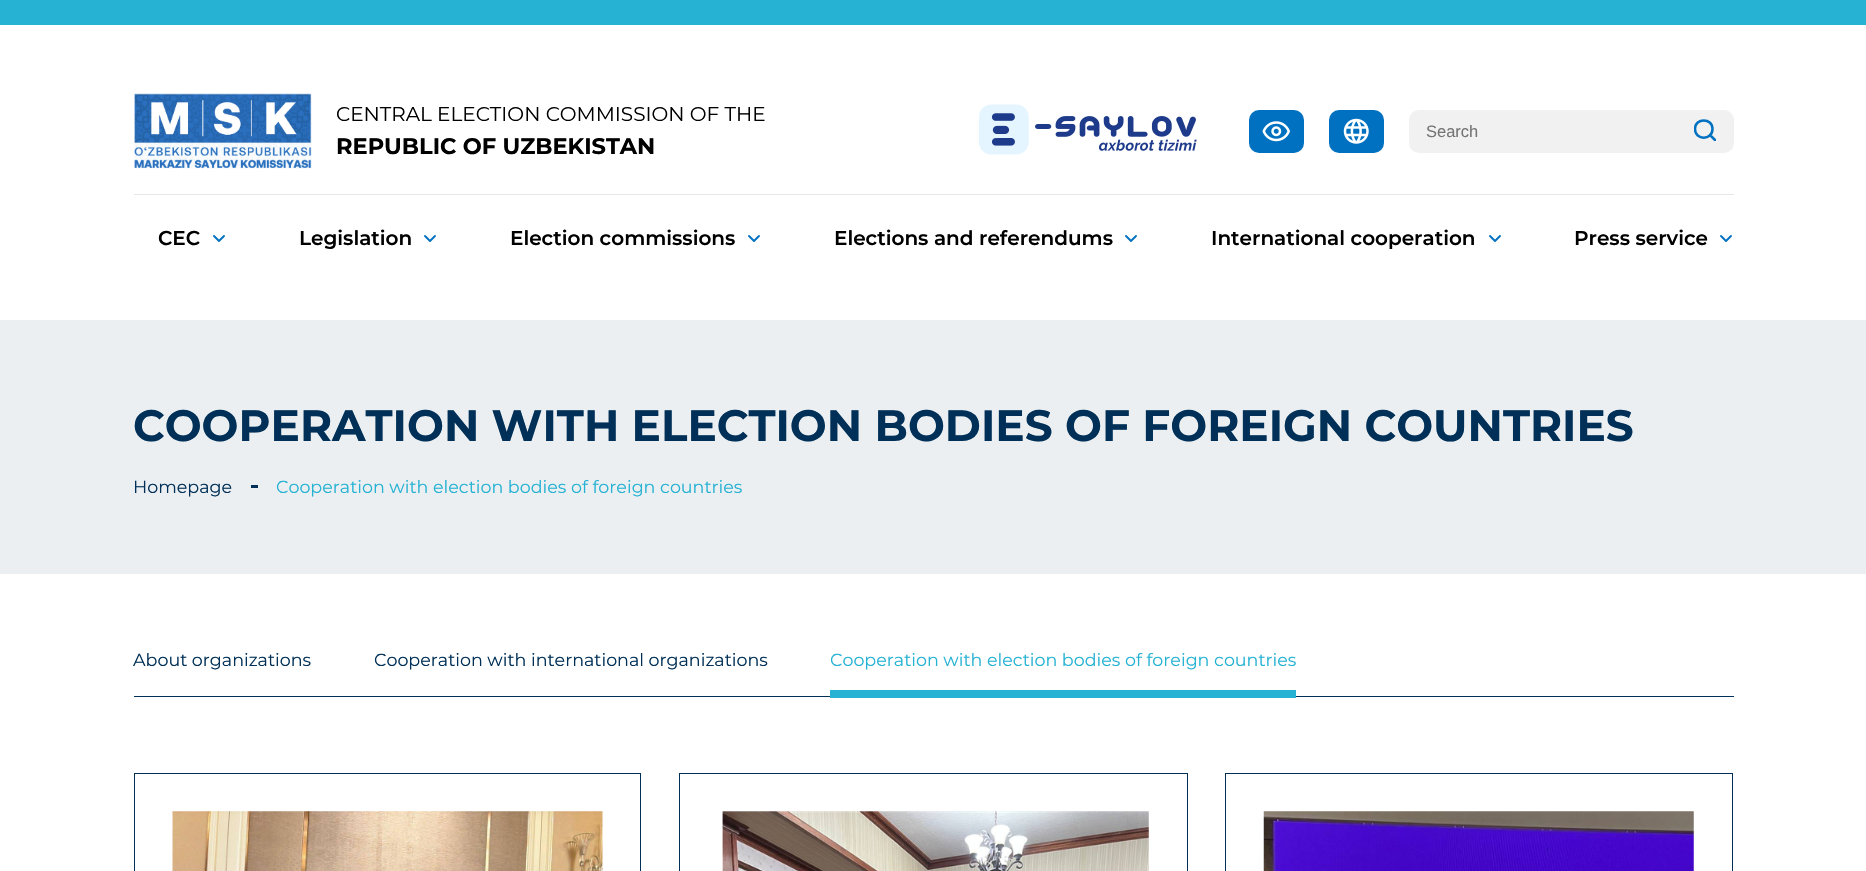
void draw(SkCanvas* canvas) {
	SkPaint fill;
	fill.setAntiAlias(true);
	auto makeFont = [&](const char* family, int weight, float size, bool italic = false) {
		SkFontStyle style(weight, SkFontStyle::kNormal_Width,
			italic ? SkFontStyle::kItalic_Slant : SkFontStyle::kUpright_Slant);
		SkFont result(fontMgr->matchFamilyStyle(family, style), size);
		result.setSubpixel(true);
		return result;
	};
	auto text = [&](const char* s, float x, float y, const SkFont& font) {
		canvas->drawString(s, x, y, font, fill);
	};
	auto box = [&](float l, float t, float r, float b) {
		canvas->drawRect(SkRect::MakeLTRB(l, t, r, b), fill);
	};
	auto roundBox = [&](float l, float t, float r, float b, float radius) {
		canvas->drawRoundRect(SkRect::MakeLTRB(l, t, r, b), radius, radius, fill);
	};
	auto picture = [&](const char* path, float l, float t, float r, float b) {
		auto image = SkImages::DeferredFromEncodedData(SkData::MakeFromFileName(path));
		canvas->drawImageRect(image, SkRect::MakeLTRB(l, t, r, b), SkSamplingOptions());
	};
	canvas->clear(0xFFFFFFFF);
	fill.setColor(0xFF25B2D3);
	box(0, 0, 1866, 25);
	fill.setColor(0xFFE7E7E7);
	box(134, 194, 1734, 195);
	picture("image0.png", 134, 93, 312, 169);
	picture("image1.png", 979, 104, 1197, 155);
	fill.setColor(0xFF0071C1);
	roundBox(1249, 110, 1304, 153, 10);
	picture("image2.png", 1262, 121, 1290, 142);
	roundBox(1329, 110, 1384, 153, 10);
	picture("image3.png", 1343, 118, 1369, 144);
	fill.setColor(0xFFF1F1F1);
	roundBox(1409, 110, 1734, 153, 10);
	canvas->save();
	canvas->clipRect(SkRect::MakeLTRB(1694, 119, 1716, 141));
	fill.setStyle(SkPaint::kStroke_Style);
	fill.setStrokeWidth(2.5f);
	fill.setStrokeCap(SkPaint::kRound_Cap);
	fill.setStrokeJoin(SkPaint::kRound_Join);
	fill.setColor(0xFF0071C1);
	canvas->drawPath(SkPathBuilder().moveTo(1712.5f, 129).cubicTo(1712.5f, 140.5f, 1695, 140.5f, 1695, 129).cubicTo(1695, 117.5f, 1712.5f, 117.5f, 1712.5f, 129).close().moveTo(1715, 140).lineTo(1710, 135).detach(), fill);
	canvas->restore();
	fill.setStrokeWidth(1.9f);
	canvas->drawPath(SkPathBuilder().moveTo(214, 236).lineTo(219, 241).lineTo(224, 236).detach(), fill);
	canvas->drawPath(SkPathBuilder().moveTo(425, 236).lineTo(430, 241).lineTo(435, 236).detach(), fill);
	canvas->drawPath(SkPathBuilder().moveTo(749, 236).lineTo(754, 241).lineTo(759, 236).detach(), fill);
	canvas->drawPath(SkPathBuilder().moveTo(1126, 236).lineTo(1131, 241).lineTo(1136, 236).detach(), fill);
	canvas->drawPath(SkPathBuilder().moveTo(1490, 236).lineTo(1495, 241).lineTo(1500, 236).detach(), fill);
	canvas->drawPath(SkPathBuilder().moveTo(1721, 236).lineTo(1726, 241).lineTo(1731, 236).detach(), fill);
	fill.setStyle(SkPaint::kFill_Style);
	fill.setColor(0xFFEBEFF2);
	box(0, 320, 1866, 574);
	fill.setColor(0xFF003057);
	box(251, 485, 258, 488);
	box(134, 696, 1734, 697);
	fill.setColor(0xFF25B2D3);
	box(830, 690, 1296, 698);
	fill.setStyle(SkPaint::kStroke_Style);
	fill.setStrokeWidth(1);
	fill.setStrokeCap(SkPaint::kButt_Cap);
	fill.setStrokeJoin(SkPaint::kMiter_Join);
	fill.setColor(0xFF003057);
	canvas->drawRect(SkRect::MakeLTRB(134.5f, 773.5f, 640.5f, 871.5f), fill);
	picture("image4.png", 172, 811, 603, 871);
	canvas->drawRect(SkRect::MakeLTRB(679.5f, 773.5f, 1187.5f, 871.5f), fill);
	picture("image5.png", 722, 811, 1149, 871);
	canvas->drawRect(SkRect::MakeLTRB(1225.5f, 773.5f, 1732.5f, 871.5f), fill);
	picture("image6.png", 1263, 811, 1694, 871);
	auto font1 = makeFont("Montserrat", 400, 20);
	fill.setStyle(SkPaint::kFill_Style);
	fill.setColor(0xFF000000);
	text("CENTRAL ELECTION COMMISSION OF THE", 336, 121, font1);
	auto font2 = makeFont("Montserrat", 700, 22.5f);
	text("REPUBLIC OF UZBEKISTAN", 336, 154, font2);
	auto font3 = makeFont("Liberation Sans", 400, 16.5f);
	fill.setColor(0xFF757575);
	text("Search", 1426, 137, font3);
	auto font4 = makeFont("Montserrat", 600, 20);
	fill.setColor(0xFF000000);
	text("CEC", 158, 245, font4);
	text("Legislation", 299, 245, font4);
	text("Election commissions", 510, 245, font4);
	text("Elections and referendums", 834, 245, font4);
	text("International cooperation", 1211, 245, font4);
	text("Press service", 1574, 245, font4);
	auto font5 = makeFont("Montserrat", 700, 43.75f);
	fill.setColor(0xFF003057);
	text("COOPERATION WITH ELECTION BODIES OF FOREIGN COUNTRIES", 133, 441, font5);
	auto font6 = makeFont("Montserrat", 400, 17.5f);
	text("Homepage", 133, 493, font6);
	fill.setColor(0xFF25B2D3);
	text("Cooperation with election bodies of foreign countries", 276, 493, font6);
	fill.setColor(0xFF003057);
	text("About organizations", 133, 666, font6);
	text("Cooperation with international organizations", 374, 666, font6);
	fill.setColor(0xFF25B2D3);
	text("Cooperation with election bodies of foreign countries", 830, 666, font6);
}
